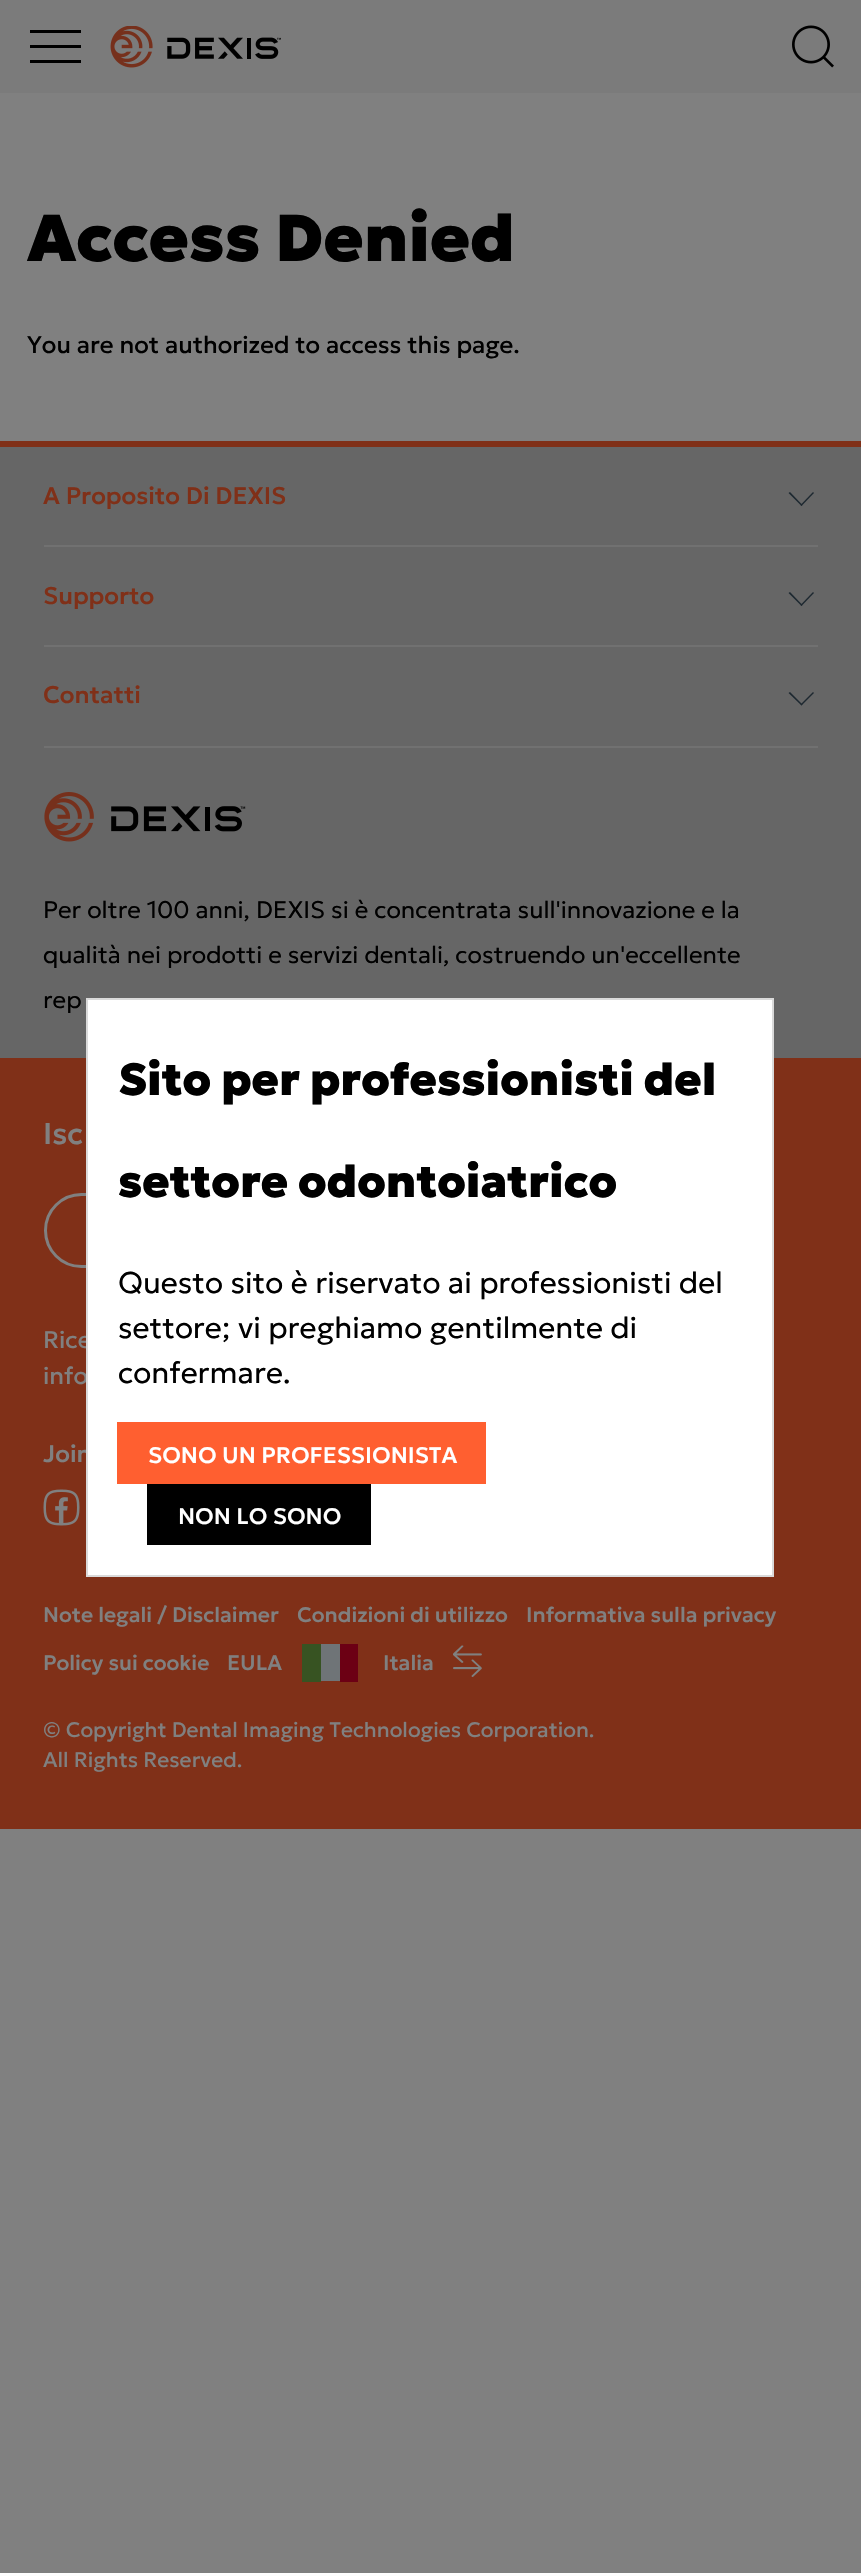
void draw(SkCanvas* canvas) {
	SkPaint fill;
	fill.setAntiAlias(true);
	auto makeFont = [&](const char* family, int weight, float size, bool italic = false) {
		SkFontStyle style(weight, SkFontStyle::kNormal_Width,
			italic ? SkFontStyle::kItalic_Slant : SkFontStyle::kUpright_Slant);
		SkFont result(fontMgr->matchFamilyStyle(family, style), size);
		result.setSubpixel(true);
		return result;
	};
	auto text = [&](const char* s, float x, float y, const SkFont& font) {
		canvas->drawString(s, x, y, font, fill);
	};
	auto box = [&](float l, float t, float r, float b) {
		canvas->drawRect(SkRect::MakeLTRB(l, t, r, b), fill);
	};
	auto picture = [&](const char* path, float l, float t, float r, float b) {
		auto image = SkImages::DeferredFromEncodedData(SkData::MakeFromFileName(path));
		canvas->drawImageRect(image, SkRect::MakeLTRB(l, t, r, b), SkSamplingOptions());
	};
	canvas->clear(0xFF808080);
	fill.setColor(0xFF7B7B7B);
	box(0, 0, 861, 93);
	fill.setColor(0xFF000000);
	box(30, 30, 81, 33);
	box(30, 45, 81, 48);
	box(30, 60, 81, 63);
	picture("image0.png", 110, 26, 281, 68);
	picture("image1.png", 792, 25, 834, 68);
	fill.setColor(0xFF666666);
	box(0, 447, 861, 1058);
	fill.setColor(0xFF803018);
	box(0, 441, 861, 447);
	fill.setColor(0xFF717171);
	box(44, 545, 818, 547);
	fill.setColor(0xFF1D2830);
	canvas->drawPath(SkPathBuilder().moveTo(813, 492).lineTo(814, 493).lineTo(801.5f, 506).lineTo(800.5f, 505).close().detach(), fill);
	canvas->drawPath(SkPathBuilder().moveTo(790, 492).lineTo(802.5f, 505).lineTo(801.5f, 506).lineTo(788.5f, 493).close().detach(), fill);
	fill.setColor(0xFF717171);
	box(44, 645, 818, 647);
	fill.setColor(0xFF1D2830);
	canvas->drawPath(SkPathBuilder().moveTo(813, 592).lineTo(814, 593).lineTo(801.5f, 606).lineTo(800.5f, 605).close().detach(), fill);
	canvas->drawPath(SkPathBuilder().moveTo(790, 592).lineTo(802.5f, 605).lineTo(801.5f, 606).lineTo(788.5f, 593).close().detach(), fill);
	fill.setColor(0xFF717171);
	box(44, 746, 818, 748);
	fill.setColor(0xFF1D2830);
	canvas->drawPath(SkPathBuilder().moveTo(813, 692).lineTo(814, 693).lineTo(801.5f, 705.5f).lineTo(800.5f, 704.5f).close().detach(), fill);
	canvas->drawPath(SkPathBuilder().moveTo(790, 692).lineTo(802.5f, 704.5f).lineTo(801.5f, 705.5f).lineTo(788.5f, 693).close().detach(), fill);
	picture("image2.png", 44, 792, 246, 842);
	fill.setColor(0xFF803018);
	box(0, 1058, 861, 1829);
	fill.setStyle(SkPaint::kStroke_Style);
	fill.setStrokeWidth(3);
	fill.setColor(0xFF808080);
	canvas->drawRoundRect(SkRect::MakeLTRB(45.5f, 1194.5f, 313.5f, 1266.5f), 36, 36, fill);
	picture("image3.png", 43, 1489, 80, 1526);
	fill.setStyle(SkPaint::kFill_Style);
	fill.setColor(0xFF6F7477);
	canvas->drawPath(SkPathBuilder().moveTo(339, 1644).lineTo(302, 1644).lineTo(302, 1681).lineTo(358, 1681).lineTo(358, 1644).close().detach(), fill);
	fill.setColor(0xFF375322);
	box(302, 1644, 321, 1682);
	fill.setColor(0xFF6C0014);
	box(340, 1644, 358, 1682);
	picture("image4.png", 453, 1645, 482, 1677);
	auto font1 = makeFont("Geologica", 900, 66);
	fill.setColor(0xFF000000);
	text("Access Denied", 27, 261, font1);
	auto font2 = makeFont("Geologica", 400, 24);
	text("You are not authorized to access this page.", 27, 353, font2);
	auto font3 = makeFont("Geologica", 500, 24);
	fill.setColor(0xFF803018);
	text("A Proposito Di DEXIS", 43, 504, font3);
	text("Supporto", 43, 604, font3);
	text("Contatti", 43, 703, font3);
	auto font4 = makeFont("Geologica", 300, 24);
	fill.setColor(0xFF000000);
	text("Per oltre 100 anni, DEXIS si è concentrata sull'innovazione e la", 43, 918, font4);
	text("qualità nei prodotti e servizi dentali, costruendo un'eccellente", 43, 963, font4);
	text("rep", 43, 1008, font4);
	auto font5 = makeFont("Geologica", 500, 30);
	fill.setColor(0xFF808080);
	text("Isc", 43, 1144, font5);
	text("Rice", 43, 1348, font2);
	text("info", 43, 1384, font2);
	text("Join", 43, 1462, font3);
	fill.setColor(0xFFFFFFFF);
	canvas->drawRect(SkRect::MakeLTRB(87, 999, 773, 1576), fill);
	fill.setStyle(SkPaint::kStroke_Style);
	fill.setStrokeWidth(2);
	fill.setColor(0xFFDADADA);
	canvas->drawRect(SkRect::MakeLTRB(87, 999, 773, 1576), fill);
	fill.setStyle(SkPaint::kFill_Style);
	fill.setColor(0xFF000000);
	box(147, 1484, 371, 1545);
	auto font6 = makeFont("Geologica", 500, 22.5f);
	fill.setColor(0xFFFFFFFF);
	text("NON LO SONO", 178, 1524, font6);
	fill.setColor(0xFFFF5F30);
	box(117, 1422, 486, 1484);
	fill.setColor(0xFFFFFFFF);
	text("SONO UN PROFESSIONISTA", 148, 1463, font6);
	auto font7 = makeFont("Geologica", 300, 30);
	fill.setColor(0xFF000000);
	text("confermare.", 118, 1383, font7);
	text("settore; vi preghiamo gentilmente di", 118, 1338, font7);
	text("Questo sito è riservato ai professionisti del", 118, 1293, font7);
	auto font8 = makeFont("Geologica", 900, 45);
	text("settore odontoiatrico", 118, 1197, font8);
	text("Sito per professionisti del", 118, 1095, font8);
	auto font9 = makeFont("Geologica", 500, 21);
	fill.setColor(0xFF808080);
	text("Note legali / Disclaimer", 43, 1622, font9);
	text("Condizioni di utilizzo", 297, 1622, font9);
	text("Informativa sulla privacy", 526, 1622, font9);
	text("Policy sui cookie", 43, 1670, font9);
	text("EULA", 227, 1670, font9);
	text("Italia", 383, 1670, font9);
	auto font10 = makeFont("Geologica", 400, 21);
	text("© Copyright Dental Imaging Technologies Corporation.", 43, 1737, font10);
	text("All Rights Reserved.", 43, 1767, font10);
}
